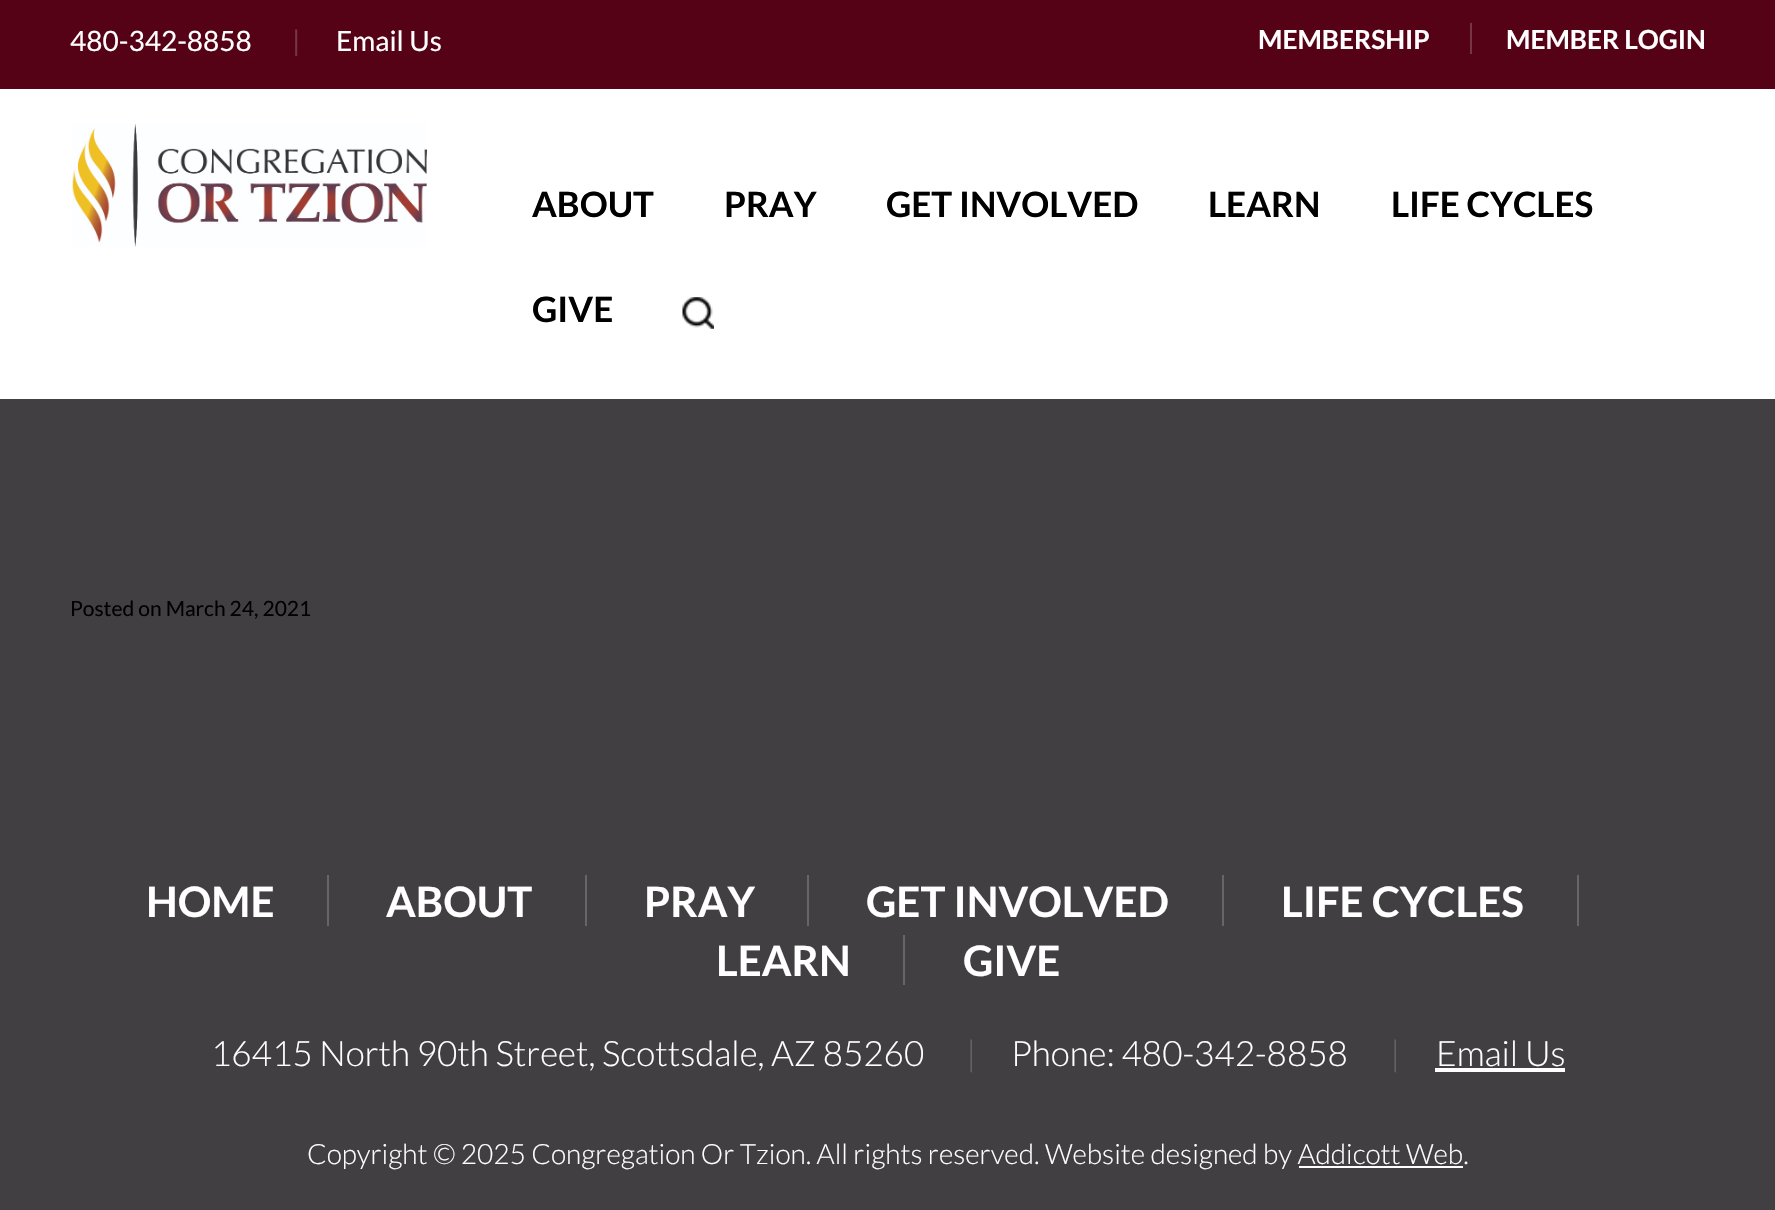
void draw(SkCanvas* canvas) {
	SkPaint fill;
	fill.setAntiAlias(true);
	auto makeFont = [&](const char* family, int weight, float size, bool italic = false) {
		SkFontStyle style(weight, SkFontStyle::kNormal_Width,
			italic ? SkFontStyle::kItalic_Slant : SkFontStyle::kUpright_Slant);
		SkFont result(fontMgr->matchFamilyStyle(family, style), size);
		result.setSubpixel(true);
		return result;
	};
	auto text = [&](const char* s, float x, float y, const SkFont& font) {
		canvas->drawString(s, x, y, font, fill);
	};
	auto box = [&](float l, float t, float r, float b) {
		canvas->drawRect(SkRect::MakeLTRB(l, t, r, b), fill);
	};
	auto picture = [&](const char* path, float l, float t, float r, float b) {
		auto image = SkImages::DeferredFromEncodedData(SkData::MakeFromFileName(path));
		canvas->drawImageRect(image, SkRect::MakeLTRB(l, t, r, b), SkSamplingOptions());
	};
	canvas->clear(0xFF413F41);
	fill.setColor(0xFF560216);
	box(0, 0, 1775, 89);
	fill.setColor(0xFF783545);
	box(1470, 23, 1472, 54);
	fill.setColor(0xFFFFFFFF);
	box(0, 89, 1775, 399);
	picture("image0.png", 72, 124, 427, 247);
	picture("image1.png", 682, 297, 714, 329);
	fill.setColor(0xFF676567);
	box(327, 875, 329, 926);
	box(585, 875, 587, 926);
	box(807, 875, 809, 926);
	box(1222, 875, 1224, 926);
	box(1577, 875, 1579, 926);
	box(903, 935, 905, 985);
	fill.setColor(0xFFFFFFFF);
	box(1435, 1068, 1565, 1072);
	box(1299, 1166, 1463, 1168);
	auto font1 = makeFont("Lato", 400, 28);
	text("480-342-8858", 70, 51, font1);
	fill.setColor(0xFF783545);
	text("|", 292, 51, font1);
	fill.setColor(0xFFFFFFFF);
	text("Email Us", 336, 51, font1);
	auto font2 = makeFont("Lato", 700, 26.25f);
	text("MEMBERSHIP", 1258, 49, font2);
	text("MEMBER LOGIN", 1506, 49, font2);
	auto font3 = makeFont("Lato", 700, 35);
	fill.setColor(0xFF000000);
	text("ABOUT", 532, 217, font3);
	text("PRAY", 724, 217, font3);
	text("GET INVOLVED", 886, 217, font3);
	text("LEARN", 1208, 217, font3);
	text("LIFE CYCLES", 1391, 217, font3);
	text("GIVE", 532, 322, font3);
	auto font4 = makeFont("Lato", 400, 21);
	text("Posted on March 24, 2021", 70, 616, font4);
	auto font5 = makeFont("Lato", 700, 42);
	fill.setColor(0xFFFFFFFF);
	text("HOME", 146, 917, font5);
	text("ABOUT", 386, 917, font5);
	text("PRAY", 644, 917, font5);
	text("GET INVOLVED", 866, 917, font5);
	text("LIFE CYCLES", 1281, 917, font5);
	text("LEARN", 716, 976, font5);
	text("GIVE", 963, 976, font5);
	auto font6 = makeFont("Lato", 300, 35);
	text("16415 North 90th Street, Scottsdale, AZ 85260", 211, 1066, font6);
	fill.setColor(0xFF676567);
	text("|", 966, 1066, font6);
	fill.setColor(0xFFFFFFFF);
	text("Phone: 480-342-8858", 1011, 1066, font6);
	fill.setColor(0xFF676567);
	text("|", 1390, 1066, font6);
	fill.setColor(0xFFFFFFFF);
	text("Email Us", 1436, 1066, font6);
	auto font7 = makeFont("Lato", 300, 28);
	text("Copyright © 2025 Congregation Or Tzion. All rights reserved. Website designed by Addicott Web.", 307, 1164, font7);
}
